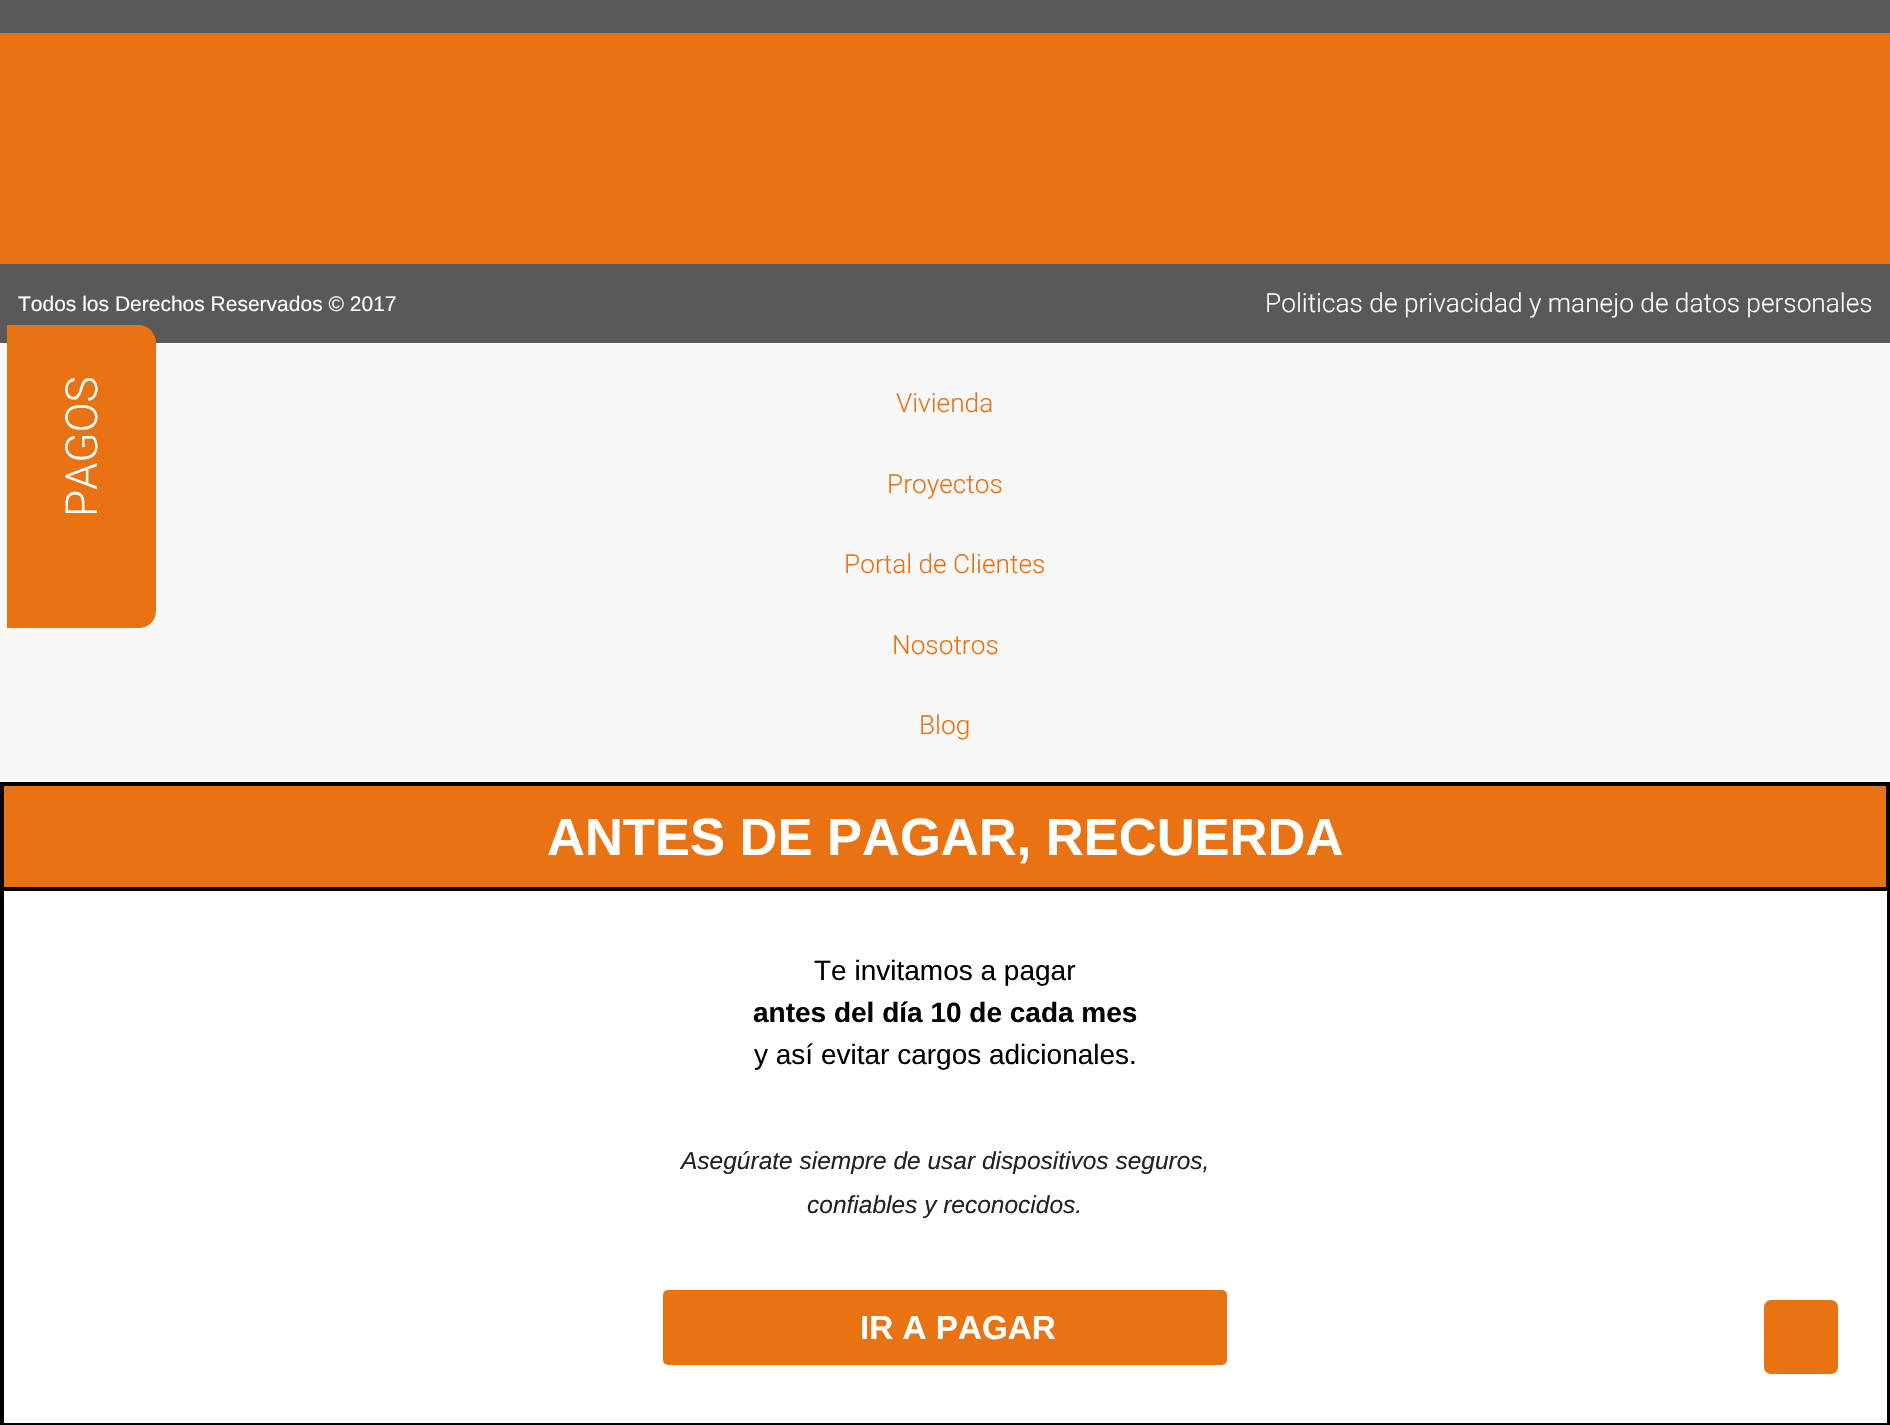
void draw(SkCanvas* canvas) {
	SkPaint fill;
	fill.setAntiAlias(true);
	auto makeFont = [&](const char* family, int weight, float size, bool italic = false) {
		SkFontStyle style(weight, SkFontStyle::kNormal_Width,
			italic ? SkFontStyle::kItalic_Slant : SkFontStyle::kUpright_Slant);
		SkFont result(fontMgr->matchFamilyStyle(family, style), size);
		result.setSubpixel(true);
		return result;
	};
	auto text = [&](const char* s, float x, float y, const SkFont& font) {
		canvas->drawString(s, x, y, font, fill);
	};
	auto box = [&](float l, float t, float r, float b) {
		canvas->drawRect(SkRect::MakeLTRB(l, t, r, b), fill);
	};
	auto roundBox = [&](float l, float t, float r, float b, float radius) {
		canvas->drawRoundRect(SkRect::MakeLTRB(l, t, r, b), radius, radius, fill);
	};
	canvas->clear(0xFFF8F8F8);
	fill.setColor(0xFF595959);
	box(0, 0, 1890, 33);
	fill.setColor(0xFFE97213);
	box(0, 33, 1890, 264);
	fill.setColor(0xFF595959);
	box(0, 264, 1890, 343);
	fill.setColor(0xFFE97213);
	canvas->drawPath(SkPathBuilder().moveTo(7, 628).lineTo(7, 325).lineTo(139, 325).cubicTo(148, 325, 156, 333, 156, 343).lineTo(156, 611).cubicTo(156, 621, 148, 628, 139, 628).close().detach(), fill);
	canvas->drawRect(SkRect::MakeLTRB(2, 784, 1888, 889), fill);
	fill.setStyle(SkPaint::kStroke_Style);
	fill.setStrokeWidth(4);
	fill.setColor(0xFF000000);
	canvas->drawRect(SkRect::MakeLTRB(2, 784, 1888, 889), fill);
	fill.setStyle(SkPaint::kFill_Style);
	fill.setColor(0xFFFFFFFF);
	box(4, 891, 1887, 1423);
	fill.setColor(0xFF000000);
	box(1887, 891, 1890, 1425);
	box(0, 1423, 1890, 1425);
	box(0, 891, 4, 1425);
	fill.setColor(0xFFE97213);
	roundBox(663, 1290, 1227, 1365, 5);
	canvas->drawRoundRect(SkRect::MakeLTRB(1765, 1301, 1837, 1373), 6, 6, fill);
	fill.setStyle(SkPaint::kStroke_Style);
	fill.setStrokeWidth(2);
	canvas->drawRoundRect(SkRect::MakeLTRB(1765, 1301, 1837, 1373), 6, 6, fill);
	auto font1 = makeFont("Liberation Sans", 400, 21);
	fill.setStyle(SkPaint::kFill_Style);
	fill.setColor(0xFFFFFFFF);
	text("Todos los Derechos Reservados © 2017", 18, 311, font1);
	auto font2 = makeFont("Roboto", 300, 26.25f);
	text("Politicas de privacidad y manejo de datos personales", 1265, 312, font2);
	auto font3 = makeFont("Roboto", 300, 44);
	canvas->save();
	canvas->rotate(-90, 97, 517);
	text("PAGOS", 97, 517, font3);
	canvas->restore();
	fill.setColor(0xFFE97213);
	text("Vivienda", 896, 412, font2);
	text("Proyectos", 887, 493, font2);
	text("Portal de Clientes", 844, 573, font2);
	text("Nosotros", 892, 654, font2);
	text("Blog", 919, 734, font2);
	auto font4 = makeFont("Liberation Sans", 700, 52.5f);
	fill.setColor(0xFFFFFFFF);
	text("ANTES DE PAGAR, RECUERDA", 547, 855, font4);
	auto font5 = makeFont("Liberation Sans", 400, 28);
	fill.setColor(0xFF000000);
	text("Te invitamos a pagar", 814, 980, font5);
	auto font6 = makeFont("Liberation Sans", 700, 28);
	text("antes del día 10 de cada mes", 753, 1022, font6);
	text("y así evitar cargos adicionales.", 754, 1064, font5);
	auto font7 = makeFont("Liberation Sans", 400, 24.5f, true);
	fill.setColor(0xFF222222);
	text("Asegúrate siempre de usar dispositivos seguros,", 681, 1169, font7);
	text("confiables y reconocidos.", 807, 1213, font7);
	auto font8 = makeFont("Liberation Sans", 700, 33.25f);
	fill.setColor(0xFFFFFFFF);
	text("IR A PAGAR", 860, 1339, font8);
}
